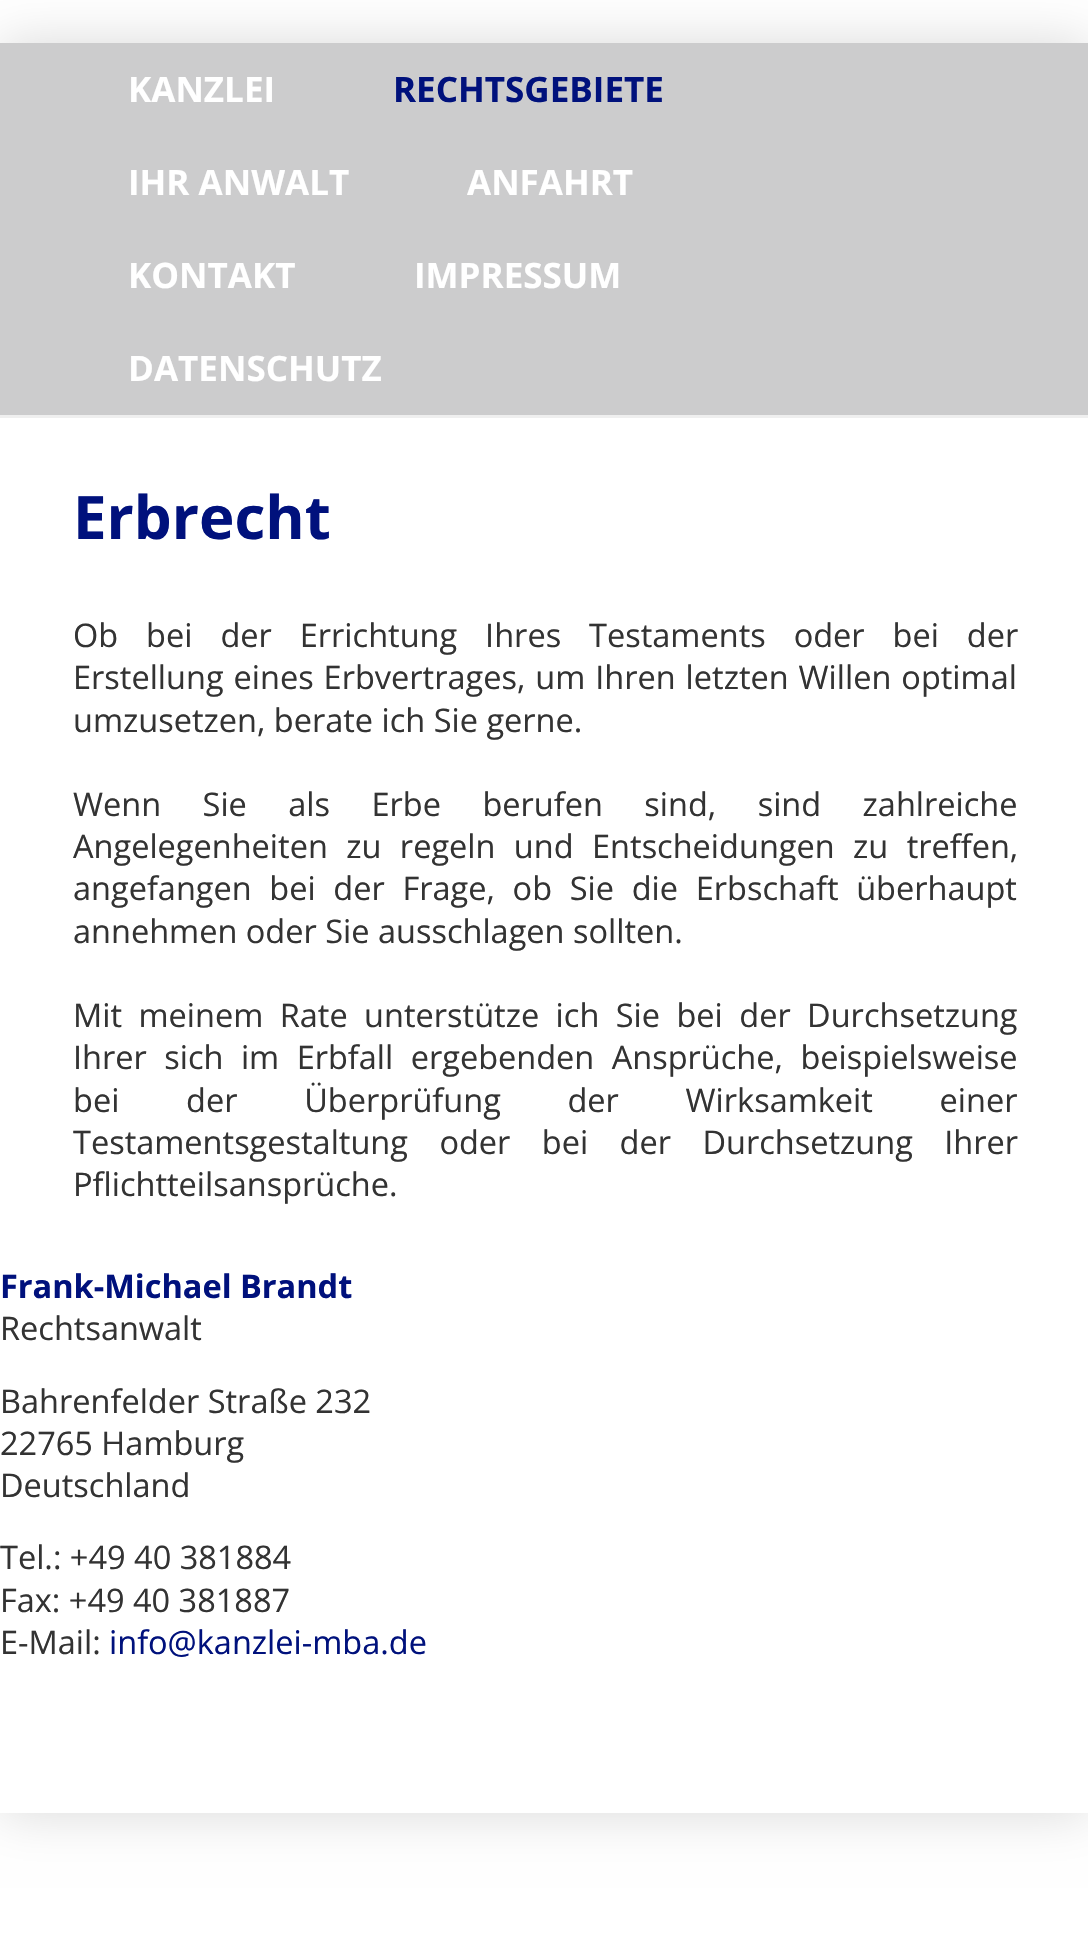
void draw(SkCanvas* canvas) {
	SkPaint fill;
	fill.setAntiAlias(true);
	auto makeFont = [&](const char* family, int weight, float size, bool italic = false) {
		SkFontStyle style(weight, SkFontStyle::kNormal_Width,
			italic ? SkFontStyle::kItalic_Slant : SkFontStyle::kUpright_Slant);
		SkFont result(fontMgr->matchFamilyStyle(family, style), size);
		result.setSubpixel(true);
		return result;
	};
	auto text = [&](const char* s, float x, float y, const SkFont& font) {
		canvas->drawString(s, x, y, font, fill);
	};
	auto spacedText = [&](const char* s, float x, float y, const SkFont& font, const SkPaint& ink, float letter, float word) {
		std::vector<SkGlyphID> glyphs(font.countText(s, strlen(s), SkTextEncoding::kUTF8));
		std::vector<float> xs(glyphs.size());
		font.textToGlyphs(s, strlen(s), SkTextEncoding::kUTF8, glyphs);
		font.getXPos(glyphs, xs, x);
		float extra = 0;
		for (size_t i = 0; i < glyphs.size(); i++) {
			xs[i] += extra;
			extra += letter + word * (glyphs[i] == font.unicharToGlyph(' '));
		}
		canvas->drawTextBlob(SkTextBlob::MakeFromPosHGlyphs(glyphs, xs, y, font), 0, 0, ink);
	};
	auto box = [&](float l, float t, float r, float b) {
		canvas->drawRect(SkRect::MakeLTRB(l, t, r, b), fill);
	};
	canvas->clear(0xFFFFFFFF);
	fill.setColor(0x26000000);
	fill.setMaskFilter(SkMaskFilter::MakeBlur(kNormal_SkBlurStyle, 25));
	canvas->drawRect(SkRect::MakeLTRB(0, 43, 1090, 1813), fill);
	fill.setMaskFilter(nullptr);
	fill.setColor(0xFFFFFFFF);
	box(0, 418, 1088, 1813);
	fill.setColor(0xFFCCCCCD);
	box(0, 43, 1088, 415);
	fill.setColor(0xFFEFEFEF);
	box(0, 415, 1088, 418);
	auto font1 = makeFont("Open Sans", 700, 35);
	fill.setColor(0xFFFFFFFF);
	text("KANZLEI", 128, 102, font1);
	fill.setColor(0xFF00117C);
	text("RECHTSGEBIETE", 393, 102, font1);
	fill.setColor(0xFFFFFFFF);
	text("IHR ANWALT", 128, 195, font1);
	text("ANFAHRT", 467, 195, font1);
	text("KONTAKT", 128, 288, font1);
	text("IMPRESSUM", 414, 288, font1);
	text("DATENSCHUTZ", 128, 381, font1);
	auto font2 = makeFont("Open Sans", 700, 60);
	fill.setColor(0xFF00117C);
	text("Erbrecht", 73, 539, font2);
	auto font3 = makeFont("Open Sans", 400, 32.5f);
	fill.setColor(0xFF333333);
	spacedText("Ob bei der Errichtung Ihres Testaments oder bei der", 73, 647, font3, fill, 0, 19.5f);
	spacedText("Erstellung eines Erbvertrages, um Ihren letzten Willen optimal", 73, 689, font3, fill, 0, 1.5f);
	text("umzusetzen, berate ich Sie gerne.", 73, 732, font3);
	spacedText("Wenn Sie als Erbe berufen sind, sind zahlreiche", 73, 816, font3, fill, 0, 33);
	spacedText("Angelegenheiten zu regeln und Entscheidungen zu treffen,", 73, 858, font3, fill, 0, 10);
	spacedText("angefangen bei der Frage, ob Sie die Erbschaft überhaupt", 73, 900, font3, fill, 0, 9.25f);
	text("annehmen oder Sie ausschlagen sollten.", 73, 943, font3);
	spacedText("Mit meinem Rate unterstütze ich Sie bei der Durchsetzung", 73, 1027, font3, fill, 0, 8);
	spacedText("Ihrer sich im Erbfall ergebenden Ansprüche, beispielsweise", 73, 1069, font3, fill, 0, 9);
	spacedText("bei der Überprüfung der Wirksamkeit einer", 73, 1112, font3, fill, 0, 58.25f);
	spacedText("Testamentsgestaltung oder bei der Durchsetzung Ihrer", 73, 1154, font3, fill, 0, 23);
	text("Pflichtteilsansprüche.", 73, 1196, font3);
	auto font4 = makeFont("Open Sans", 700, 32.5f);
	fill.setColor(0xFF00117C);
	text("Frank-Michael Brandt", 0, 1298, font4);
	fill.setColor(0xFF333333);
	text("Rechtsanwalt", 0, 1340, font3);
	text("Bahrenfelder Straße 232", 0, 1413, font3);
	text("22765 Hamburg", 0, 1455, font3);
	text("Deutschland", 0, 1497, font3);
	text("Tel.: +49 40 381884", 0, 1569, font3);
	text("Fax: +49 40 381887", 0, 1612, font3);
	text("E-Mail:", 0, 1654, font3);
	fill.setColor(0xFF00117C);
	text("info@kanzlei-mba.de", 109, 1654, font3);
}
